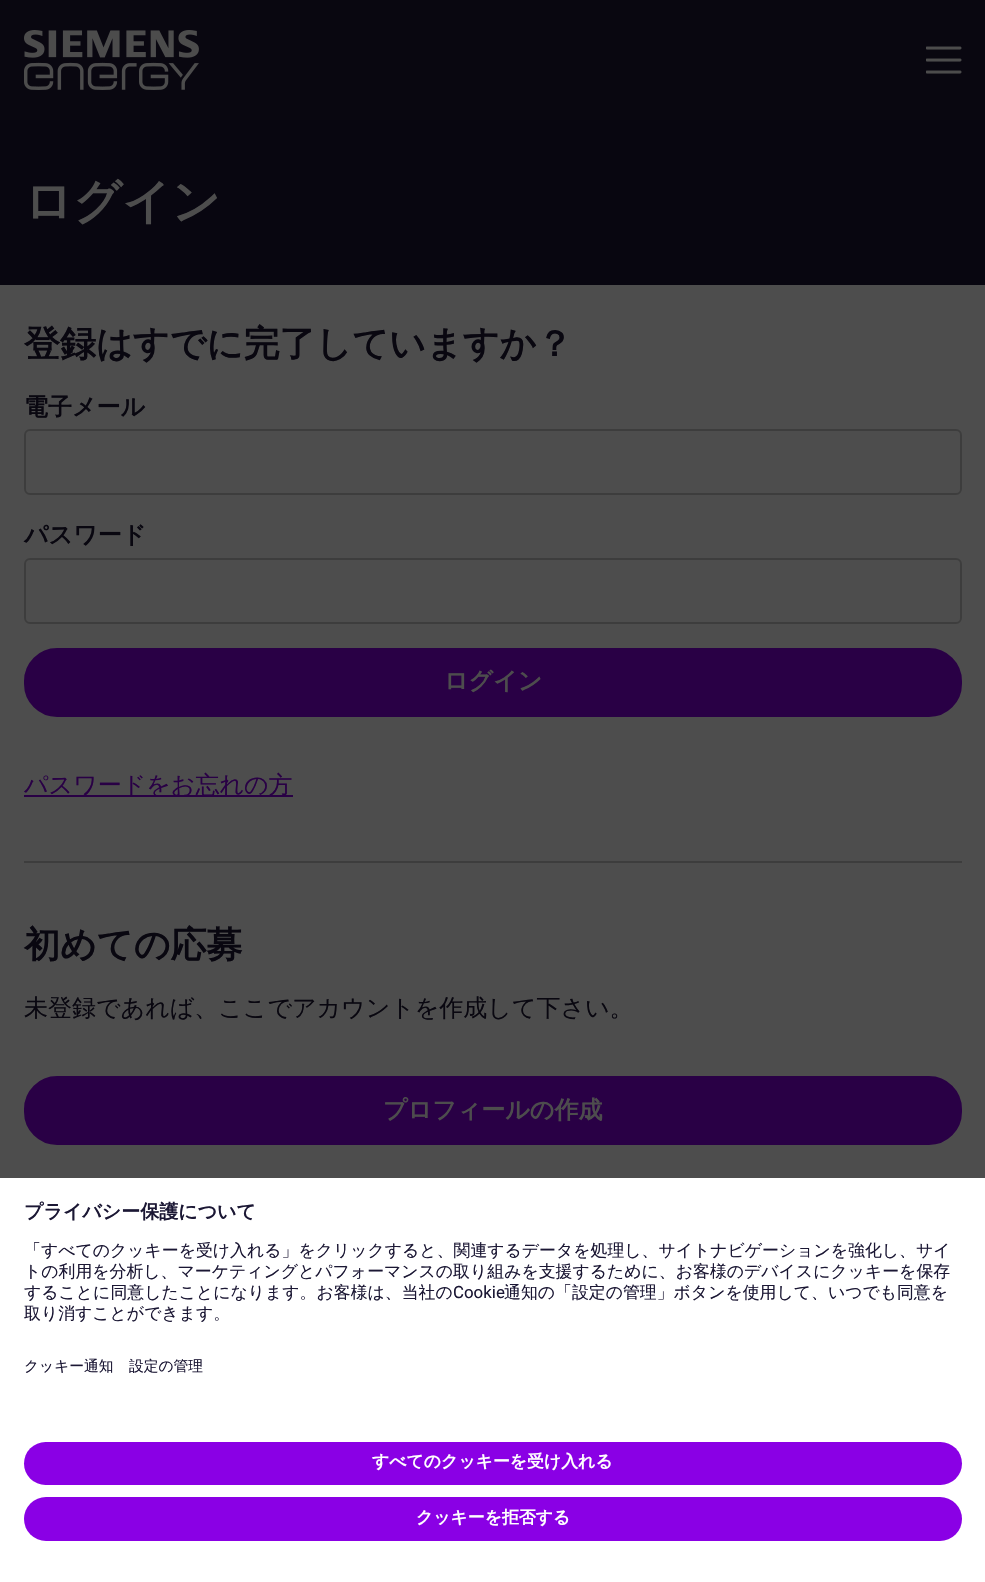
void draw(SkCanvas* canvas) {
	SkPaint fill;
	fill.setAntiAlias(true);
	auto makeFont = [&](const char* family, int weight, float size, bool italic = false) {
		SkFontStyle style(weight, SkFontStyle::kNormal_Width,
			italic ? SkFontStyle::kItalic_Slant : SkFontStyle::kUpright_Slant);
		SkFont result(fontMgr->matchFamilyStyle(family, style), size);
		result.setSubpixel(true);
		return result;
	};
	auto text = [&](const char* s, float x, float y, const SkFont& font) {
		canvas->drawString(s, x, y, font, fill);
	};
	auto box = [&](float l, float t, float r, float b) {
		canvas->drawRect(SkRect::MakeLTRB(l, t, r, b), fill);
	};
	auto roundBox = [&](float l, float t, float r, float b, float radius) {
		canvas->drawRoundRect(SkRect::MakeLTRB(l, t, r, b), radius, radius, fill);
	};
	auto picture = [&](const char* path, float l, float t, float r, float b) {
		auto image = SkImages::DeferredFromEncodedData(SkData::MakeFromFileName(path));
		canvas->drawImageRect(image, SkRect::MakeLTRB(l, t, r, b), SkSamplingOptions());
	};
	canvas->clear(0xFF4D4D4D);
	fill.setColor(0xFF090710);
	box(0, 0, 985, 120);
	picture("image0.png", 24, 30, 199, 90);
	picture("image1.png", 926, 46, 962, 74);
	fill.setColor(0xFF080610);
	box(0, 120, 985, 285);
	fill.setStyle(SkPaint::kStroke_Style);
	fill.setStrokeWidth(2);
	fill.setColor(0xFF3D3D3D);
	canvas->drawRoundRect(SkRect::MakeLTRB(25, 430, 961, 494), 5, 5, fill);
	canvas->drawRoundRect(SkRect::MakeLTRB(25, 559, 961, 623), 5, 5, fill);
	fill.setStyle(SkPaint::kFill_Style);
	fill.setColor(0xFF290045);
	canvas->drawRoundRect(SkRect::MakeLTRB(25.5f, 649.5f, 960.5f, 715.5f), 31.5f, 31.5f, fill);
	fill.setStyle(SkPaint::kStroke_Style);
	fill.setStrokeWidth(3);
	canvas->drawRoundRect(SkRect::MakeLTRB(25.5f, 649.5f, 960.5f, 715.5f), 31.5f, 31.5f, fill);
	fill.setStyle(SkPaint::kFill_Style);
	box(24, 795, 293, 797);
	fill.setColor(0xFF3D3D3D);
	box(24, 861, 962, 863);
	fill.setColor(0xFF290045);
	canvas->drawRoundRect(SkRect::MakeLTRB(25.5f, 1077.5f, 960.5f, 1143.5f), 31.5f, 31.5f, fill);
	fill.setStyle(SkPaint::kStroke_Style);
	canvas->drawRoundRect(SkRect::MakeLTRB(25.5f, 1077.5f, 960.5f, 1143.5f), 31.5f, 31.5f, fill);
	fill.setStyle(SkPaint::kFill_Style);
	fill.setColor(0xFFFFFFFF);
	box(0, 1178, 985, 1582);
	fill.setColor(0xFF8A00E5);
	roundBox(24, 1442, 962, 1485, 21.5f);
	roundBox(24, 1497, 962, 1541, 22);
	auto font1 = makeFont("WenQuanYi Zen Hei", 700, 48);
	fill.setColor(0xFF4D4D4D);
	text("ログイン", 24, 218, font1);
	auto font2 = makeFont("WenQuanYi Zen Hei", 700, 36);
	fill.setColor(0xFF090710);
	text("登録はすでに完了していますか？", 24, 356, font2);
	auto font3 = makeFont("WenQuanYi Zen Hei", 700, 24);
	text("電子メール", 24, 415, font3);
	text("パスワード", 24, 543, font3);
	fill.setColor(0xFF4D4D4D);
	text("ログイン", 444, 689, font3);
	auto font4 = makeFont("WenQuanYi Zen Hei", 500, 24);
	fill.setColor(0xFF290045);
	text("パスワードをお忘れの方", 24, 793, font4);
	fill.setColor(0xFF090710);
	text("初めての応募", 24, 957, font2);
	text("未登録であれば、ここでアカウントを作成して下さい。", 24, 1016, font4);
	fill.setColor(0xFF4D4D4D);
	text("プロフィールの作成", 383, 1118, font3);
	auto font5 = makeFont("WenQuanYi Zen Hei", 700, 19);
	fill.setColor(0xFF1B1734);
	text("プライバシー保護について", 24, 1218, font5);
	auto font6 = makeFont("WenQuanYi Zen Hei", 500, 16.88f);
	text("「すべてのクッキーを受け入れる」をクリックすると、関連するデータを処理し、サイトナビゲーションを強化し、サイ", 24, 1256, font6);
	text("トの利用を分析し、マーケティングとパフォーマンスの取り組みを支援するために、お客様のデバイスにクッキーを保存", 24, 1277, font6);
	text("することに同意したことになります。お客様は、当社の", 24, 1298, font6);
	auto font7 = makeFont("Roboto", 400, 16.88f);
	text("Cookie", 453, 1298, font7);
	text("通知の「設定の管理」ボタンを使用して、いつでも同意を", 504, 1298, font6);
	text("取り消すことができます。", 24, 1319, font6);
	auto font8 = makeFont("WenQuanYi Zen Hei", 500, 14.75f);
	text("クッキー通知", 24, 1371, font8);
	text("設定の管理", 129, 1371, font8);
	auto font9 = makeFont("WenQuanYi Zen Hei", 700, 16.88f);
	fill.setColor(0xFFFFFFFF);
	text("すべてのクッキーを受け入れる", 372, 1467, font9);
	text("クッキーを拒否する", 416, 1523, font9);
}
